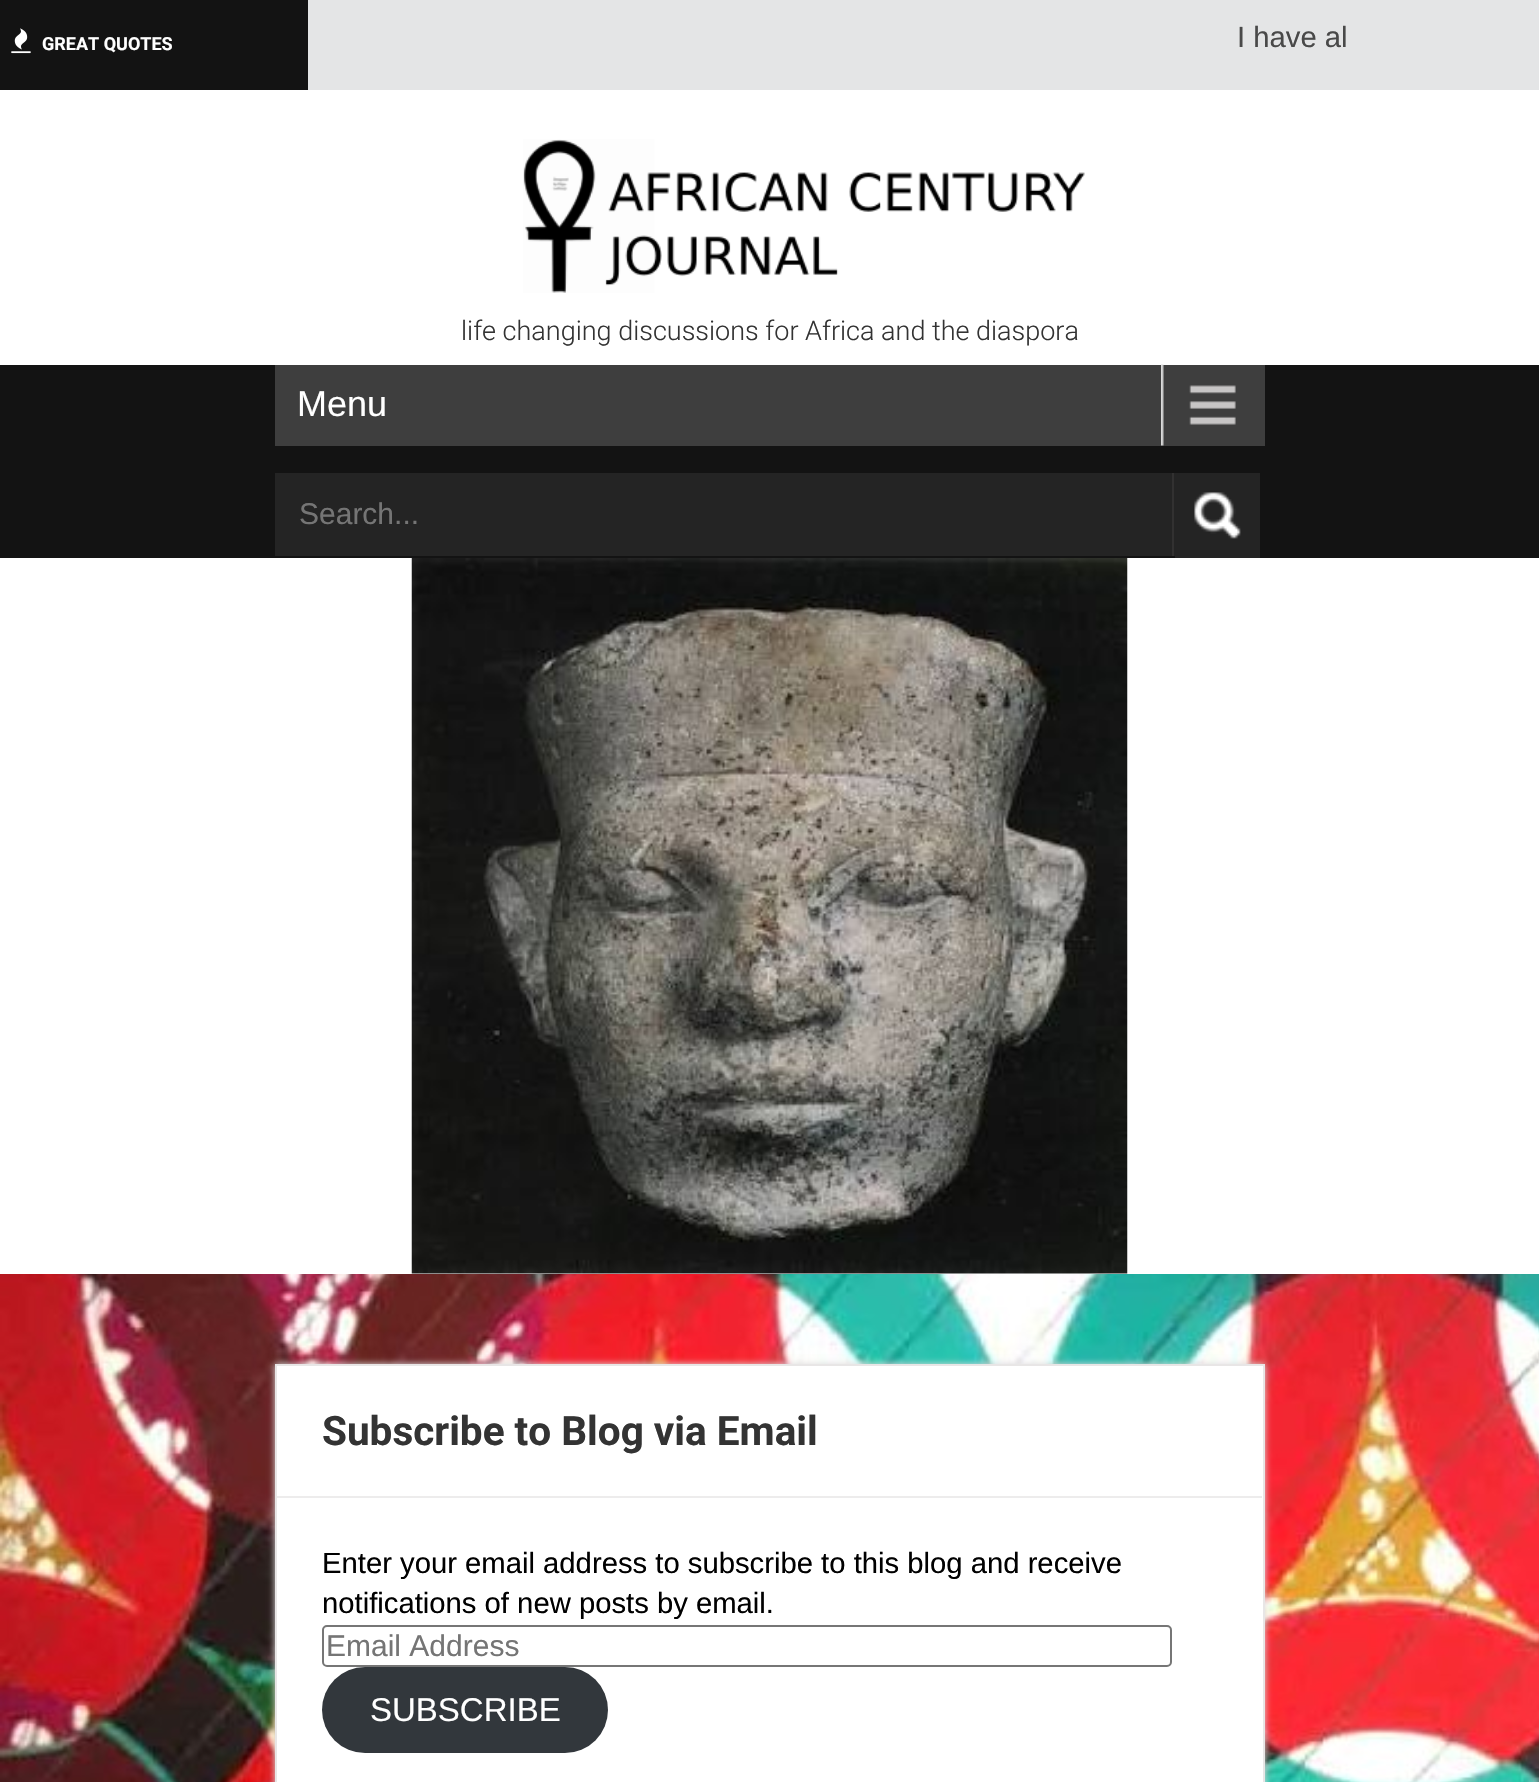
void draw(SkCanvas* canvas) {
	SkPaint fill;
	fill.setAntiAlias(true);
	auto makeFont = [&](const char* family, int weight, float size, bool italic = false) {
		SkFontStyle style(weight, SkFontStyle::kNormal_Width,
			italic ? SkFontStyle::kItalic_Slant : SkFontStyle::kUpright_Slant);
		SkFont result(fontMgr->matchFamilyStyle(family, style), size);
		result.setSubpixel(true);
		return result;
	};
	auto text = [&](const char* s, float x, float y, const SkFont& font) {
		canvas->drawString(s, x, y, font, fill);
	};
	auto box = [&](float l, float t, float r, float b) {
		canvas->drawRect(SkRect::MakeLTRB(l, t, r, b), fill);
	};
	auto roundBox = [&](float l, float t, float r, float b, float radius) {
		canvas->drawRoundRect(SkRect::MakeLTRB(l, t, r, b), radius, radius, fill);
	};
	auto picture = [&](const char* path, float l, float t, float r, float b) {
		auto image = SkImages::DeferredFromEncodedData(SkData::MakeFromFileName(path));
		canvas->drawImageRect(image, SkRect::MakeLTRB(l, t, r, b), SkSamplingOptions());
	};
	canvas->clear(0xFFFFFFFF);
	picture("image0.png", 0, 1274, 1539, 1782);
	fill.setColor(0xFF131313);
	box(0, 0, 308, 90);
	picture("image1.png", 11, 28, 31, 54);
	fill.setColor(0xFFE4E5E6);
	box(308, 0, 1539, 90);
	picture("image2.png", 523, 139, 1085, 293);
	fill.setColor(0xFF131313);
	box(0, 365, 1539, 558);
	fill.setColor(0xFF3E3E3E);
	box(275, 365, 1265, 446);
	picture("image3.png", 1161, 364, 1236, 446);
	fill.setColor(0xFF242424);
	box(275, 473, 1175, 556);
	fill.setColor(0xFF323131);
	box(1172, 473, 1174, 556);
	fill.setColor(0xFF242424);
	box(1175, 473, 1260, 558);
	picture("image4.png", 1194, 492, 1241, 539);
	picture("image5.png", 411, 558, 1128, 1274);
	fill.setColor(0xFFDDDCDC);
	fill.setMaskFilter(SkMaskFilter::MakeBlur(kNormal_SkBlurStyle, 3.5f));
	canvas->drawRect(SkRect::MakeLTRB(275, 1364, 1265, 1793), fill);
	fill.setMaskFilter(nullptr);
	fill.setColor(0xFFFFFFFF);
	canvas->drawRect(SkRect::MakeLTRB(276, 1365, 1264, 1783), fill);
	fill.setStyle(SkPaint::kStroke_Style);
	fill.setStrokeWidth(2);
	fill.setColor(0xFFE8E6E6);
	canvas->drawRect(SkRect::MakeLTRB(276, 1365, 1264, 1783), fill);
	fill.setStyle(SkPaint::kFill_Style);
	fill.setColor(0xFFEDECEC);
	box(277, 1496, 1262, 1498);
	fill.setStyle(SkPaint::kStroke_Style);
	fill.setColor(0xFF767676);
	canvas->drawRoundRect(SkRect::MakeLTRB(323, 1626, 1171, 1666), 4, 4, fill);
	fill.setStyle(SkPaint::kFill_Style);
	fill.setColor(0xFF32373C);
	roundBox(322, 1667, 608, 1753, 43);
	auto font1 = makeFont("Roboto", 700, 18);
	fill.setColor(0xFFFFFFFF);
	text("GREAT QUOTES", 42, 50, font1);
	auto font2 = makeFont("Arimo", 400, 29.25f);
	fill.setColor(0xFF494949);
	text("I have al", 1237, 47, font2);
	auto font3 = makeFont("Roboto", 300, 27);
	fill.setColor(0xFF333333);
	text("life changing discussions for Africa and the diaspora", 461, 340, font3);
	auto font4 = makeFont("Arimo", 400, 36);
	fill.setColor(0xFFFFFFFF);
	text("Menu", 297, 416, font4);
	auto font5 = makeFont("Liberation Sans", 400, 30);
	fill.setColor(0xFF757575);
	text("Search...", 299, 524, font5);
	auto font6 = makeFont("Roboto", 700, 40.5f);
	fill.setColor(0xFF333333);
	text("Subscribe to Blog via Email", 322, 1445, font6);
	fill.setColor(0xFF000000);
	text("Enter your email address to subscribe to this blog and receive", 322, 1573, font2);
	text("notifications of new posts by email.", 322, 1613, font2);
	fill.setColor(0xFF757575);
	text("Email Address", 326, 1656, font5);
	auto font7 = makeFont("Liberation Sans", 400, 33);
	fill.setColor(0xFFFFFFFF);
	text("SUBSCRIBE", 370, 1721, font7);
}
